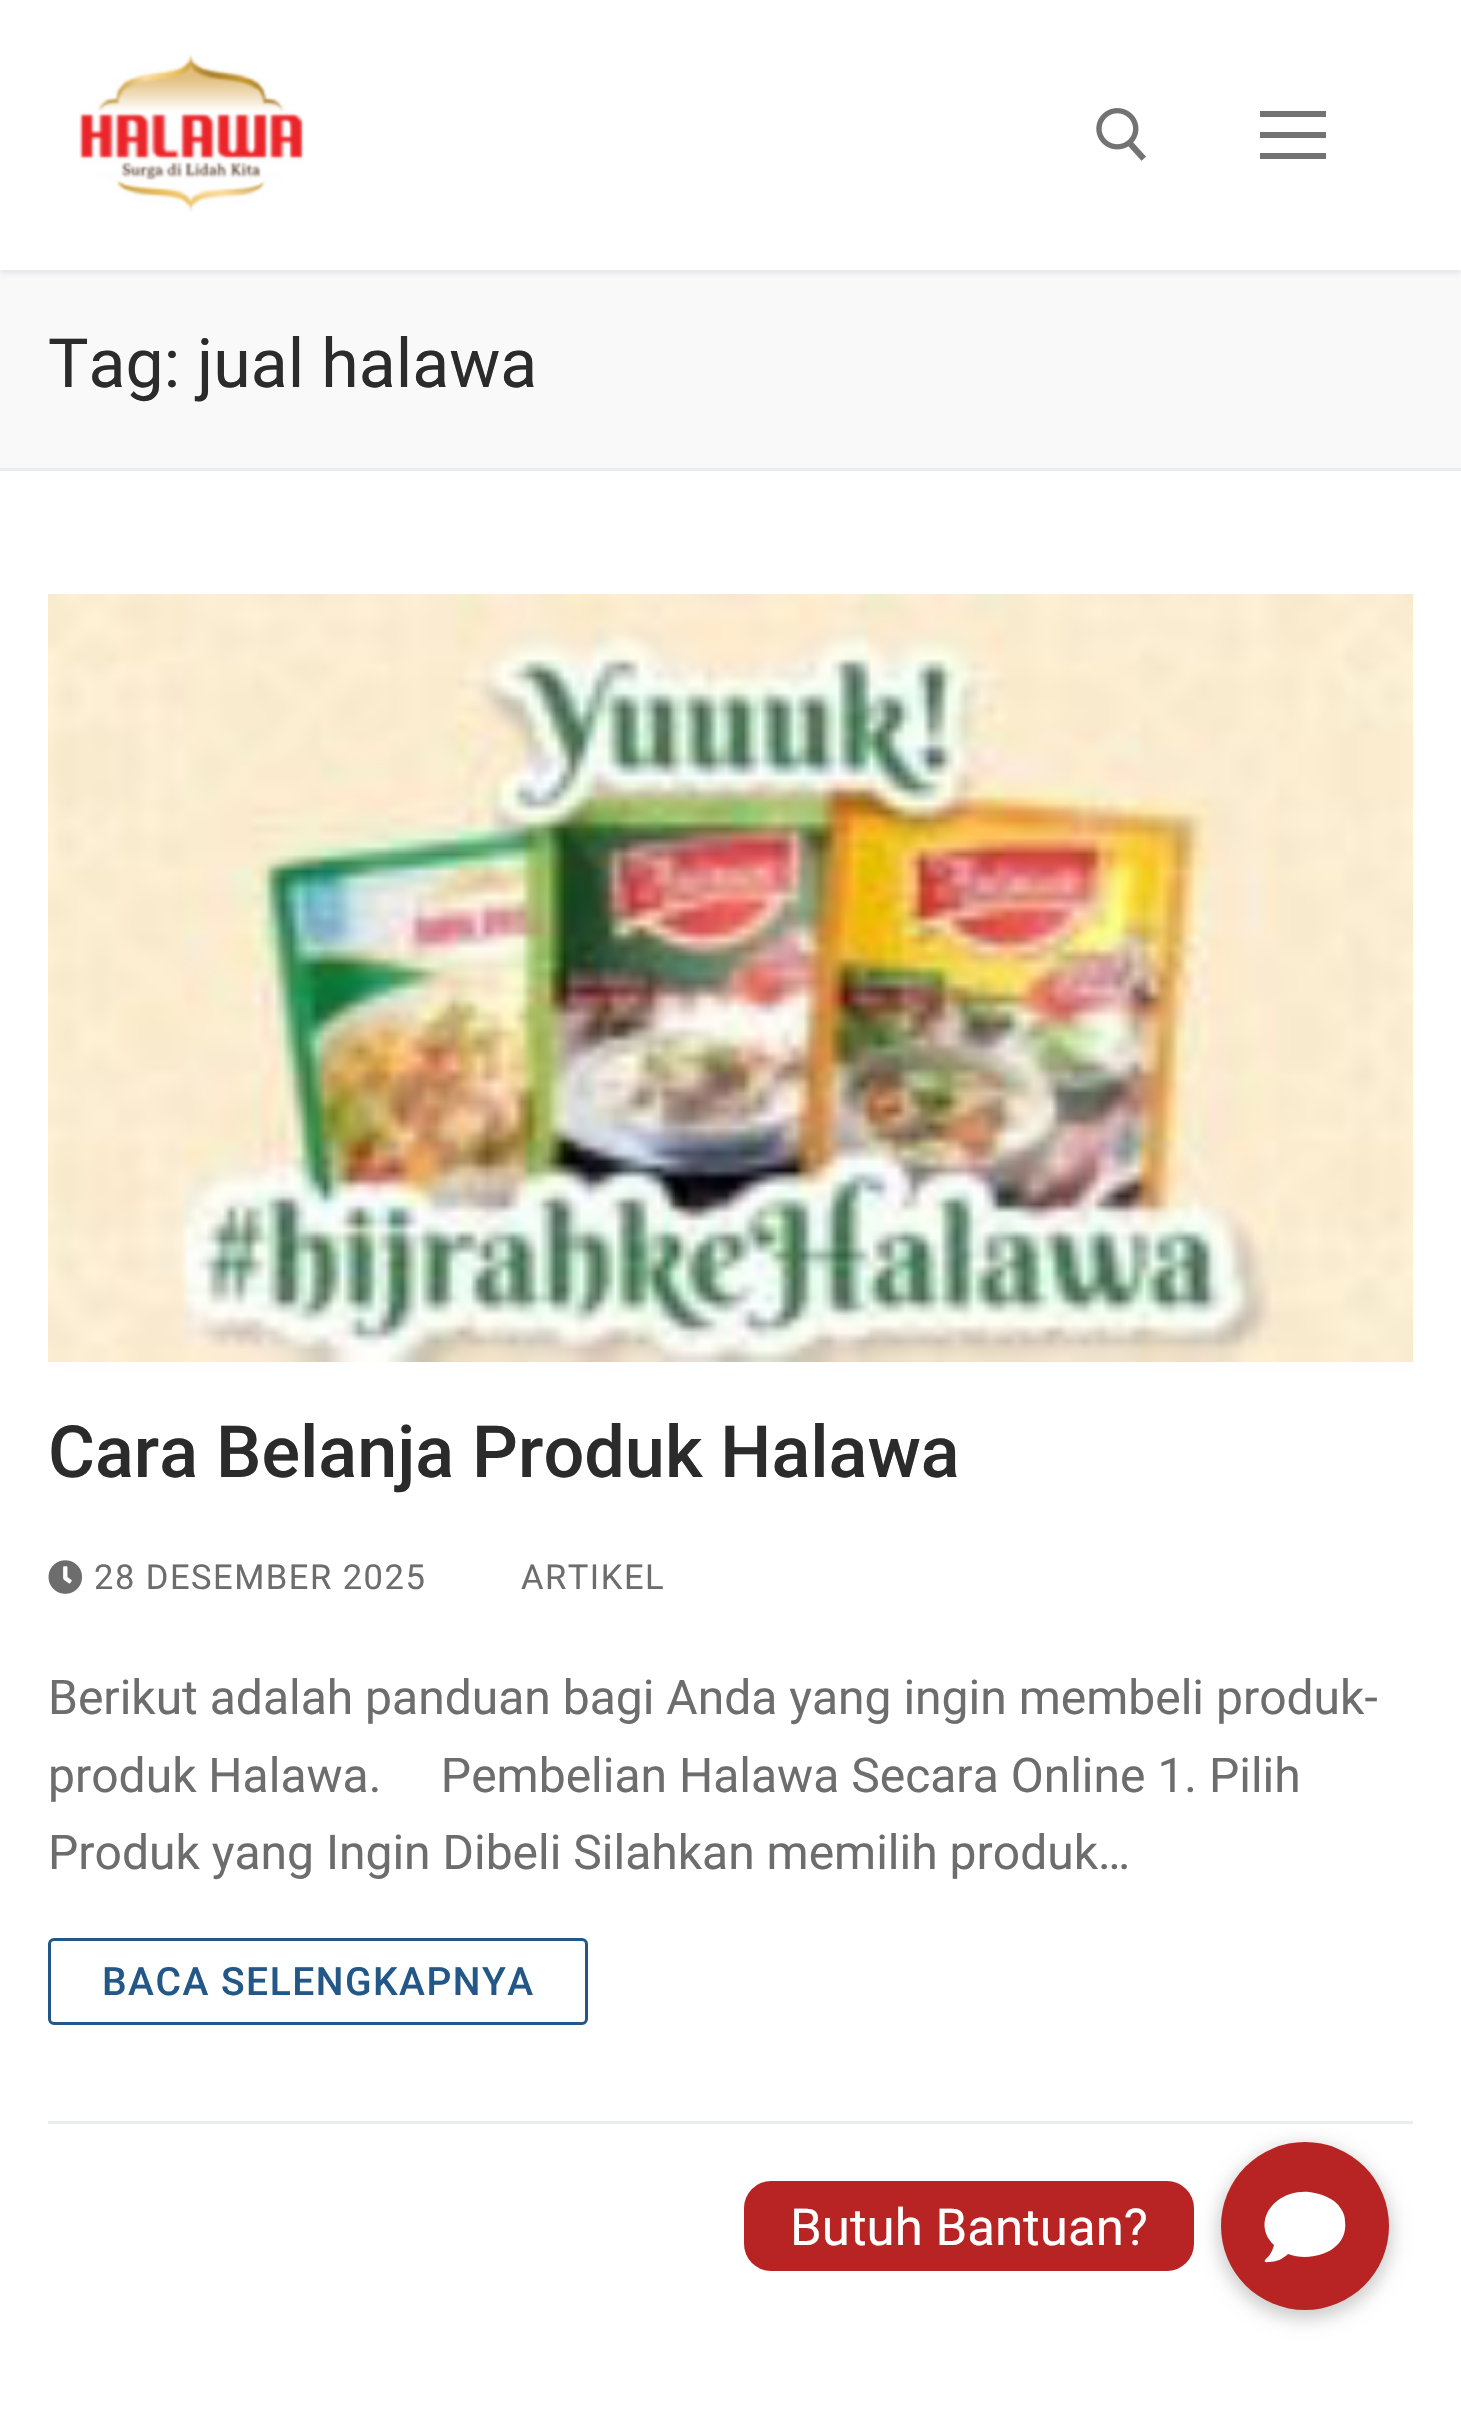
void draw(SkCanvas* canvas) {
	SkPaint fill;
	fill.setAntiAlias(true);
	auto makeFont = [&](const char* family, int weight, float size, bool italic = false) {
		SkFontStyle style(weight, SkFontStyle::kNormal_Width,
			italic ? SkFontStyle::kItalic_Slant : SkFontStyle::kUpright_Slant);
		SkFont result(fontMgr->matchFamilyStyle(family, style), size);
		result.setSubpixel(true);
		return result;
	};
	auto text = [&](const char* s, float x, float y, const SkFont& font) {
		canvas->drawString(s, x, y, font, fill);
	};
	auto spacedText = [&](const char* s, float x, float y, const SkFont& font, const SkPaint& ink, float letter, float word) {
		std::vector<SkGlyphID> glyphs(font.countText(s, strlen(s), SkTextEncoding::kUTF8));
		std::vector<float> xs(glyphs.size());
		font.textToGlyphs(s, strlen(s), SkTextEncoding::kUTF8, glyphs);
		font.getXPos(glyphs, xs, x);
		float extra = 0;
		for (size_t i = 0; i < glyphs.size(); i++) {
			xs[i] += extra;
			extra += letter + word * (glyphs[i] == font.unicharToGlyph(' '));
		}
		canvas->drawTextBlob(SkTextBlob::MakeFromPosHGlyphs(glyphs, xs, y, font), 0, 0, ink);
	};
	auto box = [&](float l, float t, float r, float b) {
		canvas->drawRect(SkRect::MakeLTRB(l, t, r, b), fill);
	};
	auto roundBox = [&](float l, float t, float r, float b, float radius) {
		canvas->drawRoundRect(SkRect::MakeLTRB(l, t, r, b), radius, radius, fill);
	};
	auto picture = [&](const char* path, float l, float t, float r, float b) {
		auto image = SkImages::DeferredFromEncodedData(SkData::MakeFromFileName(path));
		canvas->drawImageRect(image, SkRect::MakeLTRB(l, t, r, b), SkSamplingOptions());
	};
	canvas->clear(0xFFFFFFFF);
	fill.setColor(0xFFF9F9F9);
	box(0, 270, 1461, 468);
	canvas->save();
	canvas->clipRect(SkRect::MakeLTRB(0, 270, 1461, 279));
	fill.setColor(0xFFE1E5EA);
	fill.setMaskFilter(SkMaskFilter::MakeBlur(kNormal_SkBlurStyle, 3));
	canvas->drawRect(SkRect::MakeLTRB(0, 3, 1461, 273), fill);
	fill.setMaskFilter(nullptr);
	canvas->restore();
	picture("image0.png", 79, 54, 304, 212);
	picture("image1.png", 1096, 108, 1146, 161);
	fill.setColor(0xFF737373);
	box(1260, 132, 1326, 138);
	box(1260, 111, 1326, 117);
	box(1260, 153, 1326, 159);
	fill.setColor(0xFFEAECEE);
	box(0, 468, 1461, 471);
	box(48, 2121, 1413, 2124);
	picture("image2.png", 48, 594, 1413, 1362);
	picture("image3.png", 48, 1560, 82, 1594);
	fill.setStyle(SkPaint::kStroke_Style);
	fill.setStrokeWidth(3);
	fill.setColor(0xFF235787);
	canvas->drawRoundRect(SkRect::MakeLTRB(49.5f, 1939.5f, 586.5f, 2023.5f), 4.5f, 4.5f, fill);
	fill.setStyle(SkPaint::kFill_Style);
	fill.setColor(0x33000000);
	fill.setMaskFilter(SkMaskFilter::MakeBlur(kNormal_SkBlurStyle, 9));
	canvas->drawRoundRect(SkRect::MakeLTRB(1218, 2145, 1392, 2319), 87, 87, fill);
	fill.setMaskFilter(nullptr);
	fill.setColor(0xFFB82424);
	canvas->drawCircle(1305, 2226, 84, fill);
	roundBox(744, 2181, 1194, 2271, 27);
	fill.setColor(0xFFFFFFFF);
	canvas->drawPath(SkPathBuilder().moveTo(1277, 2201).cubicTo(1286, 2194, 1298, 2191, 1309, 2192).cubicTo(1318, 2193, 1327, 2196, 1334, 2201).cubicTo(1340, 2206, 1345, 2213, 1345, 2221).cubicTo(1349, 2251, 1312, 2263, 1288, 2254).cubicTo(1283, 2259, 1276, 2262, 1269, 2262).cubicTo(1261, 2263, 1266, 2259, 1269, 2256).cubicTo(1271, 2253, 1273, 2249, 1274, 2245).cubicTo(1260, 2232, 1262, 2213, 1277, 2201).close().detach(), fill);
	auto font1 = makeFont("Roboto", 400, 68);
	fill.setColor(0xFF2B2B2B);
	text("Tag: jual halawa", 48, 387, font1);
	auto font2 = makeFont("Roboto", 500, 72);
	text("Cara Belanja Produk Halawa", 48, 1477, font2);
	auto font3 = makeFont("Roboto", 400, 34.5f);
	fill.setColor(0xFF6D6D6D);
	spacedText("28 DESEMBER 2025", 94, 1589, font3, fill, 1.5f, 0);
	spacedText("ARTIKEL", 521, 1589, font3, fill, 1.5f, 0);
	auto font4 = makeFont("Roboto", 400, 48);
	text("Berikut adalah panduan bagi Anda yang ingin membeli produk-", 48, 1714, font4);
	text("produk Halawa.     Pembelian Halawa Secara Online 1. Pilih", 48, 1792, font4);
	text("Produk yang Ingin Dibeli Silahkan memilih produk…", 48, 1869, font4);
	auto font5 = makeFont("Roboto", 500, 39);
	fill.setColor(0xFF235787);
	spacedText("BACA SELENGKAPNYA", 102, 1995, font5, fill, 1.5f, 0);
	auto font6 = makeFont("Roboto", 400, 51);
	fill.setColor(0xFFFFFFFF);
	text("Butuh Bantuan?", 790, 2245, font6);
}
